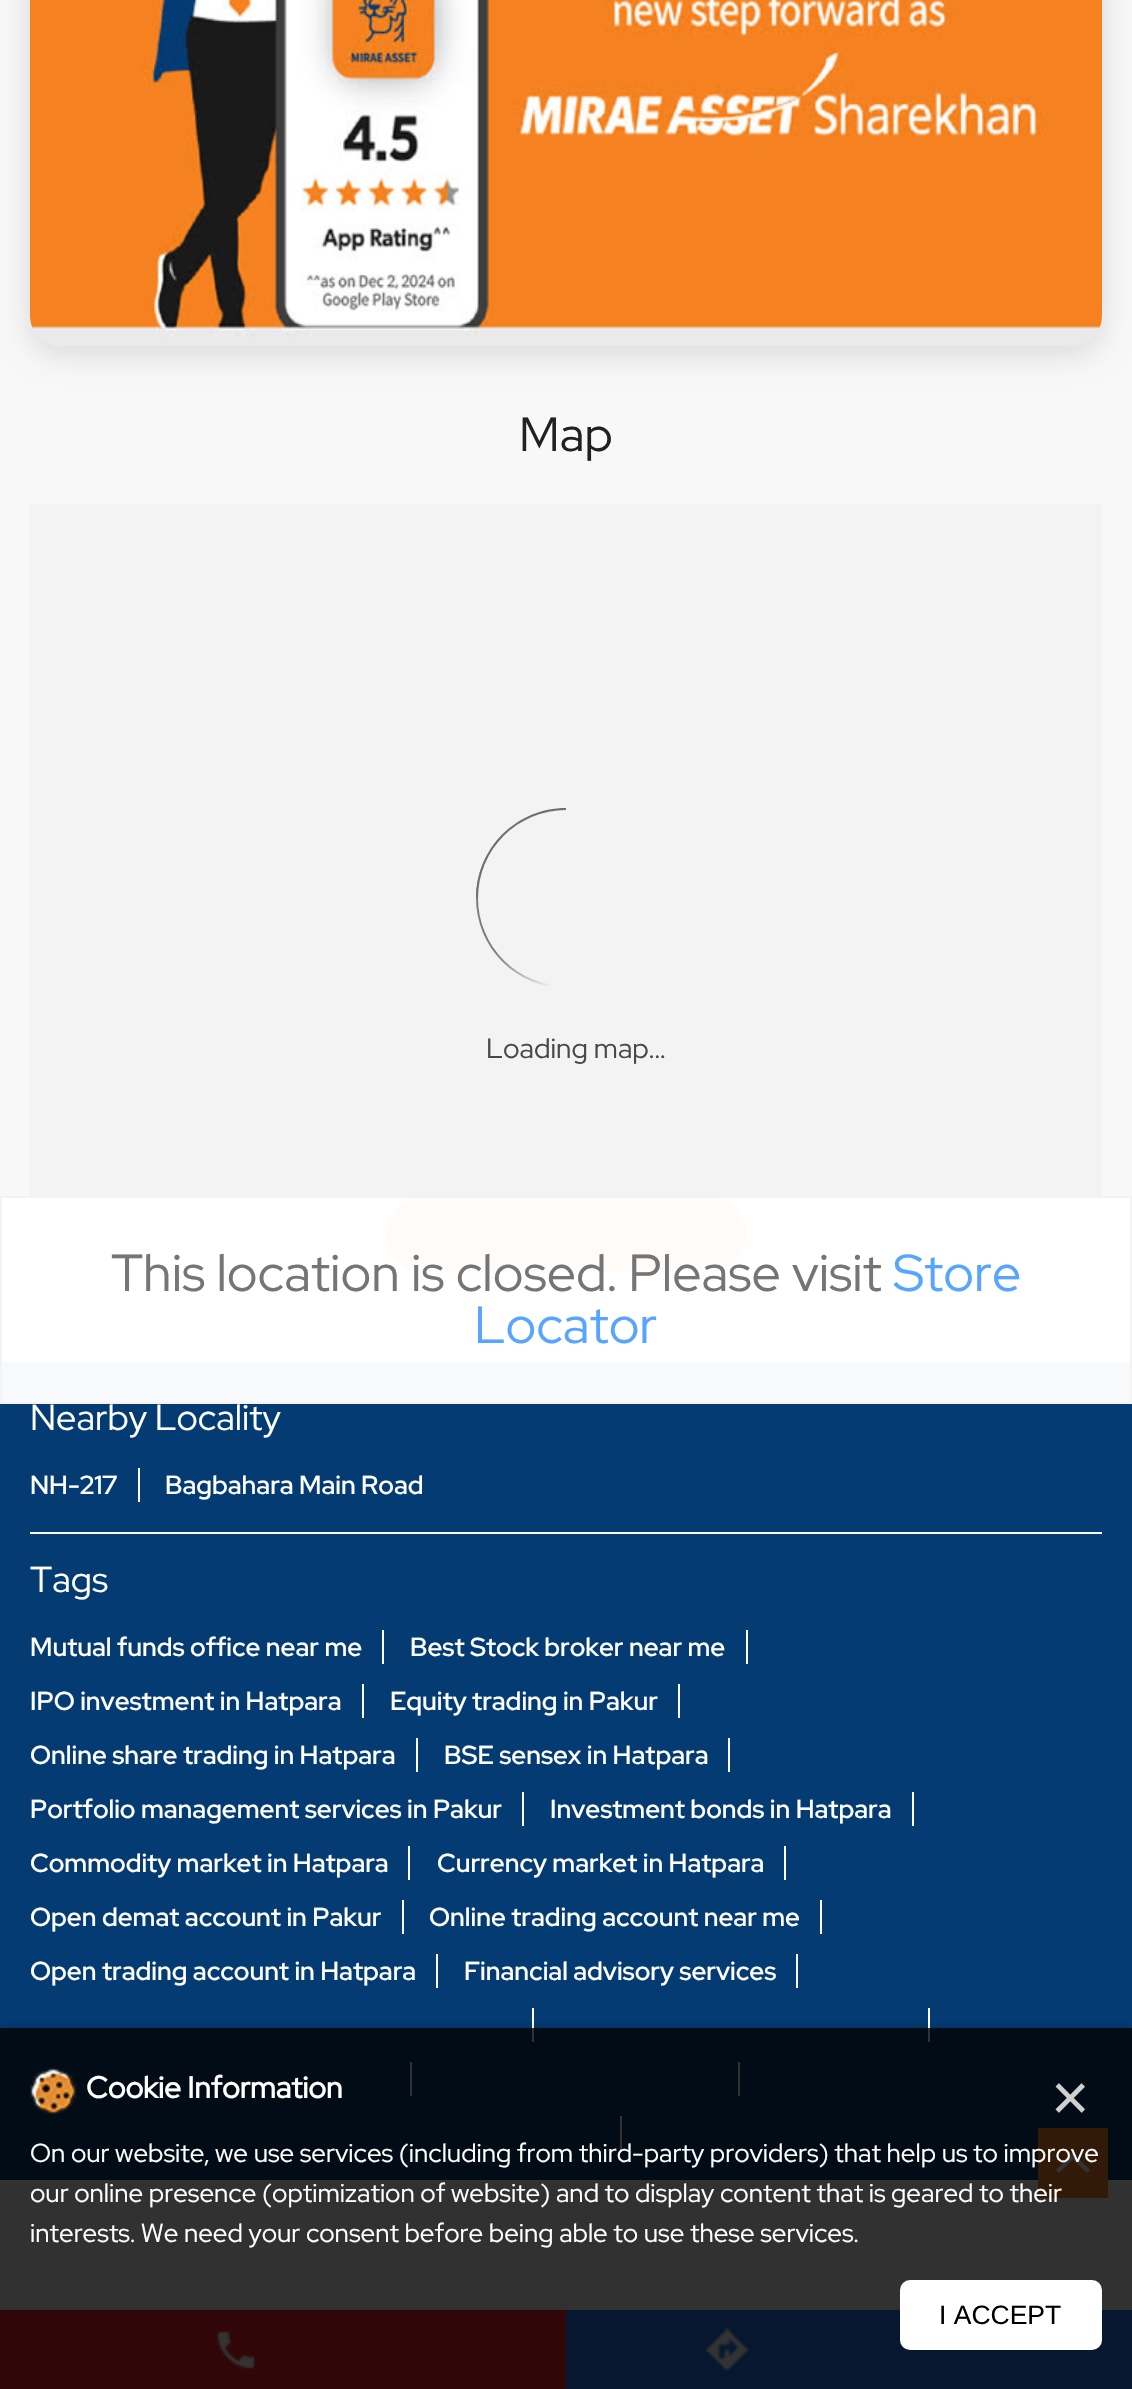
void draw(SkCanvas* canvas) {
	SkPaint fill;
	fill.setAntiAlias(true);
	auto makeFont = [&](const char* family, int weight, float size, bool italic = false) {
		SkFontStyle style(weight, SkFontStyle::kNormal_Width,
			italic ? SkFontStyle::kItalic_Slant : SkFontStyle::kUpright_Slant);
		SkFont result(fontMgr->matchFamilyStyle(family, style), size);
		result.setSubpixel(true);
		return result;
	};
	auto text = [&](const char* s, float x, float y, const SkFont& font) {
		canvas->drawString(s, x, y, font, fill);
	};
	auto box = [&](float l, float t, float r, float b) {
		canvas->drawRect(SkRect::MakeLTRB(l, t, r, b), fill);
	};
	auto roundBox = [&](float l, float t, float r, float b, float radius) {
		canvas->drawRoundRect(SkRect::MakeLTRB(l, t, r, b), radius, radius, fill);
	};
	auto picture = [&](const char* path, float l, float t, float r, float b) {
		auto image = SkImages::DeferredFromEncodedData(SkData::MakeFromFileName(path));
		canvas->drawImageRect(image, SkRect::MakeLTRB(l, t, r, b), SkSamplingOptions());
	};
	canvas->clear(0xFFF8F8F8);
	fill.setColor(0xFFFFFFFF);
	box(2, 1198, 1130, 1362);
	fill.setColor(0x1F000000);
	fill.setMaskFilter(SkMaskFilter::MakeBlur(kNormal_SkBlurStyle, 15));
	canvas->drawRoundRect(SkRect::MakeLTRB(30, -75, 1102, 354), 30, 30, fill);
	fill.setMaskFilter(nullptr);
	picture("image0.png", 30, 0, 1102, 346);
	fill.setColor(0xFFED1C24);
	box(0, 2310, 566, 2389);
	picture("image1.png", 217, 2331, 255, 2369);
	fill.setColor(0xFF1A73E9);
	box(566, 2310, 1132, 2389);
	picture("image2.png", 705, 2327, 749, 2371);
	fill.setColor(0xFFF3F3F3);
	box(30, 504, 1102, 1196);
	{
		const SkColor colors[] = {0xFF7D7D7D, 0xFFF3F3F3};
		const float stops[] = {0.1f, 0.42f};
		const SkPoint ends[] = {{476, 898}, {656, 898}};
		fill.setShader(SkGradientShader::MakeLinear(ends, colors, stops, 2, SkTileMode::kClamp));
		fill.setAlpha(255);
	}
	canvas->drawCircle(566, 898, 90, fill);
	fill.setShader(nullptr);
	fill.setColor(0xFF6F6F6F);
	canvas->drawPath(SkPathBuilder().moveTo(566, 808).lineTo(566, 898).lineTo(476, 898).cubicTo(476, 848.5f, 516.5f, 808, 566, 808).close().detach(), fill);
	fill.setColor(0xFFF3F3F3);
	canvas->drawCircle(566, 898, 88, fill);
	fill.setColor(0xFFFFFBF8);
	roundBox(386, 1198, 746, 1272, 37);
	fill.setColor(0xFFF7F9FB);
	box(2, 1362, 1130, 1402);
	fill.setStyle(SkPaint::kStroke_Style);
	fill.setStrokeWidth(2);
	fill.setColor(0xFFF3F3F3);
	canvas->drawRect(SkRect::MakeLTRB(1, 1197, 1131, 1403), fill);
	fill.setStyle(SkPaint::kFill_Style);
	fill.setColor(0xFF043B72);
	box(0, 1404, 1132, 2180);
	fill.setColor(0xFFFFFFFF);
	box(30, 1532, 1102, 1534);
	box(138, 1468, 140, 1502);
	box(382, 1630, 384, 1664);
	box(746, 1630, 748, 1664);
	box(362, 1684, 364, 1718);
	box(678, 1684, 680, 1718);
	box(416, 1738, 418, 1772);
	box(728, 1738, 730, 1772);
	box(522, 1792, 524, 1826);
	box(912, 1792, 914, 1826);
	box(408, 1846, 410, 1880);
	box(784, 1846, 786, 1880);
	box(402, 1900, 404, 1934);
	box(820, 1900, 822, 1934);
	box(436, 1954, 438, 1988);
	box(796, 1954, 798, 1988);
	box(532, 2008, 534, 2042);
	box(928, 2008, 930, 2042);
	box(410, 2062, 412, 2096);
	box(738, 2062, 740, 2096);
	box(620, 2116, 622, 2150);
	fill.setColor(0xFFF8F4F5);
	box(0, 2182, 1132, 2310);
	fill.setColor(0xFFFFFFFF);
	box(0, 2180, 1132, 2182);
	fill.setColor(0xFFF58220);
	box(1038, 2128, 1108, 2198);
	fill.setColor(0xFFFFFFFF);
	canvas->drawPath(SkPathBuilder().moveTo(1059, 2173).lineTo(1056, 2170).lineTo(1073, 2153).lineTo(1076, 2156).close().detach(), fill);
	canvas->drawPath(SkPathBuilder().moveTo(1087, 2173).lineTo(1070, 2156).lineTo(1073, 2153).lineTo(1090, 2170).close().detach(), fill);
	canvas->save();
	canvas->clipRect(SkRect::MakeLTRB(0, 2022, 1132, 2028));
	fill.setColor(0x33000000);
	fill.setMaskFilter(SkMaskFilter::MakeBlur(kNormal_SkBlurStyle, 5));
	canvas->drawRect(SkRect::MakeLTRB(0, 2028, 1132, 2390), fill);
	fill.setMaskFilter(nullptr);
	canvas->restore();
	fill.setColor(0xCC000000);
	box(0, 2028, 1132, 2389);
	picture("image3.png", 30, 2068, 77, 2114);
	fill.setColor(0xFFFFFFFF);
	roundBox(900, 2280, 1102, 2350, 10);
	auto font1 = makeFont("Red Hat Display", 400, 48);
	fill.setColor(0xFF212121);
	text("Map", 519, 451, font1);
	auto font2 = makeFont("Red Hat Display", 400, 28);
	fill.setColor(0xFF484848);
	text("Loading map...", 486, 1058, font2);
	auto font3 = makeFont("Red Hat Display", 400, 52);
	fill.setColor(0xFF757575);
	text("This location is closed. Please visit", 111, 1291, font3);
	fill.setColor(0xFF57A5FF);
	text("Store", 893, 1291, font3);
	text("Locator", 474, 1343, font3);
	auto font4 = makeFont("Red Hat Display", 400, 36);
	fill.setColor(0xFFFFFFFF);
	text("Nearby Locality", 30, 1430, font4);
	auto font5 = makeFont("Red Hat Display", 500, 26);
	text("NH-217", 30, 1494, font5);
	text("Bagbahara Main Road", 165, 1494, font5);
	text("Tags", 30, 1592, font4);
	text("Mutual funds office near me", 30, 1656, font5);
	text("Best Stock broker near me", 410, 1656, font5);
	text("IPO investment in Hatpara", 30, 1710, font5);
	text("Equity trading in Pakur", 390, 1710, font5);
	text("Online share trading in Hatpara", 30, 1764, font5);
	text("BSE sensex in Hatpara", 444, 1764, font5);
	text("Portfolio management services in Pakur", 30, 1818, font5);
	text("Investment bonds in Hatpara", 550, 1818, font5);
	text("Commodity market in Hatpara", 30, 1872, font5);
	text("Currency market in Hatpara", 437, 1872, font5);
	text("Open demat account in Pakur", 30, 1926, font5);
	text("Online trading account near me", 429, 1926, font5);
	text("Open trading account in Hatpara", 30, 1980, font5);
	text("Financial advisory services", 464, 1980, font5);
	auto font6 = makeFont("Red Hat Display", 700, 30);
	text("Cookie Information", 86, 2098, font6);
	auto font7 = makeFont("Liberation Sans", 400, 66);
	fill.setColor(0xFFD0D0D0);
	text("×", 1051, 2120, font7);
	auto font8 = makeFont("Red Hat Display", 400, 26);
	fill.setColor(0xFFFFFFFF);
	text("On our website, we use services (including from third-party providers) that help us to improve", 30, 2162, font8);
	text("our online presence (optimization of website) and to display content that is geared to their", 30, 2202, font8);
	text("interests. We need your consent before being able to use these services.", 30, 2242, font8);
	auto font9 = makeFont("Liberation Sans", 400, 26.5f);
	fill.setColor(0xFF000000);
	text("I ACCEPT", 939, 2324, font9);
}
